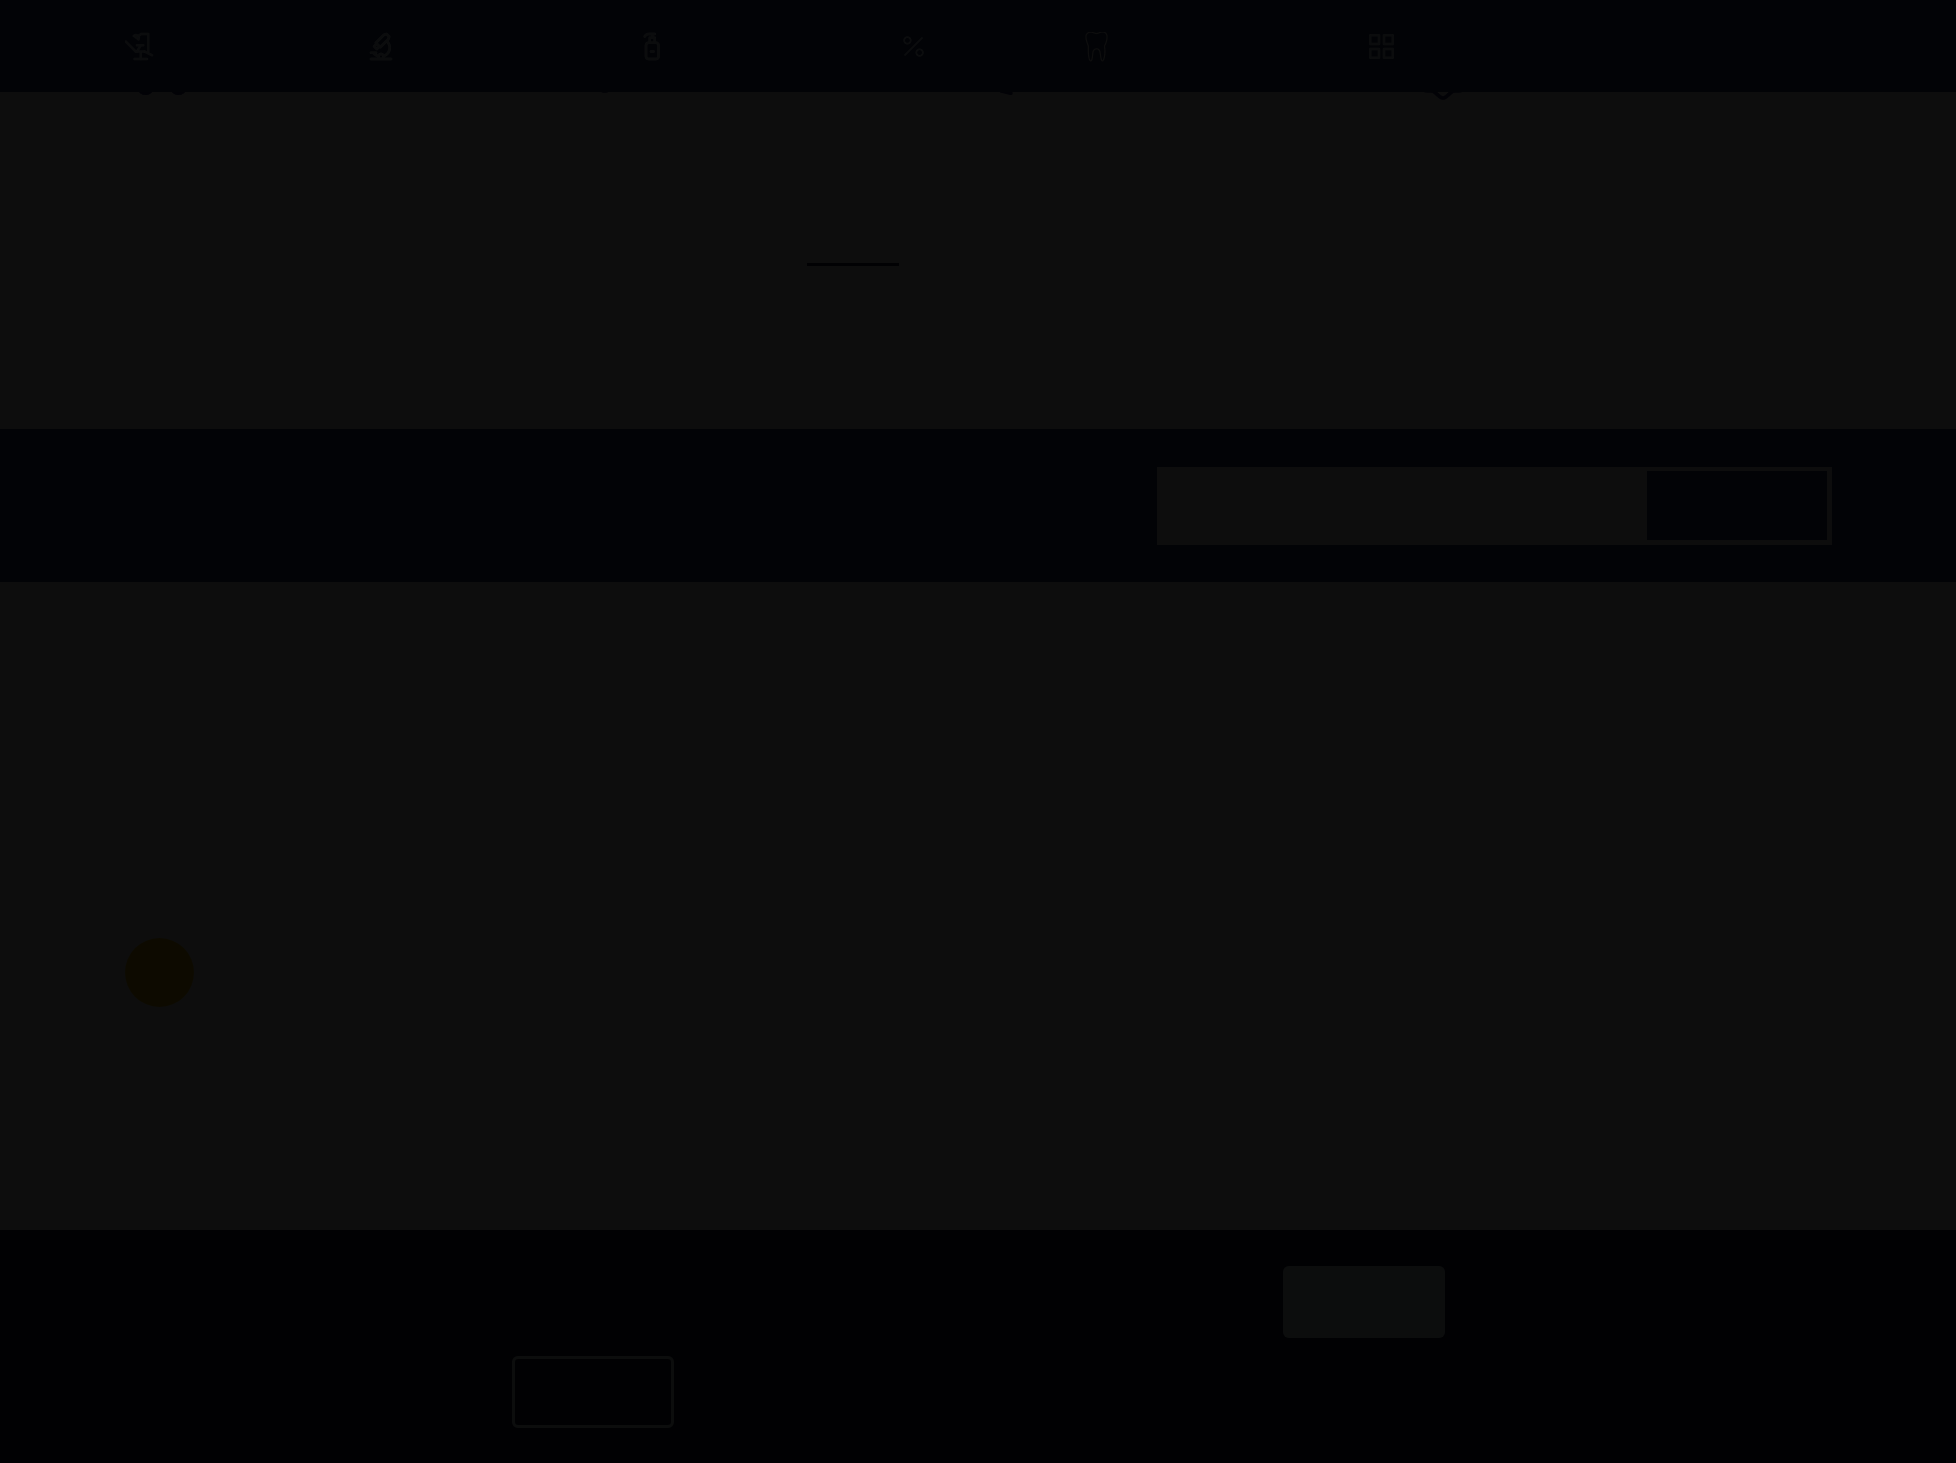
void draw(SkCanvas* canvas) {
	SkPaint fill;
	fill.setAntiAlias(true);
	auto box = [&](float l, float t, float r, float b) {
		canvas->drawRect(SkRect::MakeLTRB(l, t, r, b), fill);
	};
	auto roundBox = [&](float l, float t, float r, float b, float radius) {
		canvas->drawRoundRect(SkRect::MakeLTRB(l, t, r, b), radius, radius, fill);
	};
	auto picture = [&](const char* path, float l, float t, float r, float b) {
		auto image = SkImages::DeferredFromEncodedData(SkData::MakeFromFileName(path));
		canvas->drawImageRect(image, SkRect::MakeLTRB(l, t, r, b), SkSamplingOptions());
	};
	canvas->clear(0xFF0D0D0D);
	fill.setColor(0xFF020306);
	box(0, 0, 1956, 92);
	picture("image0.png", 125, 32, 154, 61);
	picture("image1.png", 369, 32, 393, 61);
	picture("image2.png", 643, 32, 660, 61);
	picture("image3.png", 903, 36, 924, 57);
	picture("image4.png", 1085, 32, 1108, 62);
	picture("image5.png", 1369, 34, 1394, 59);
	picture("image6.png", 139, 92, 185, 96);
	picture("image7.png", 601, 92, 609, 93);
	picture("image8.png", 1000, 92, 1013, 95);
	picture("image9.png", 1423, 92, 1463, 100);
	fill.setColor(0xFF010103);
	box(807, 263, 899, 266);
	fill.setColor(0xFF020306);
	box(0, 429, 1956, 582);
	fill.setColor(0xFF0D0D0D);
	box(1157, 467, 1832, 545);
	fill.setColor(0xFF020306);
	box(1647, 471, 1827, 540);
	fill.setColor(0xFF0D0A00);
	canvas->drawCircle(159.5f, 972.5f, 34.5f, fill);
	fill.setColor(0xFF010103);
	box(0, 1230, 1956, 1463);
	fill.setColor(0xFF0C0D0D);
	roundBox(1283, 1266, 1445, 1338, 6);
	fill.setStyle(SkPaint::kStroke_Style);
	fill.setStrokeWidth(3);
	canvas->drawRoundRect(SkRect::MakeLTRB(513.5f, 1357.5f, 672.5f, 1426.5f), 4.5f, 4.5f, fill);
}
